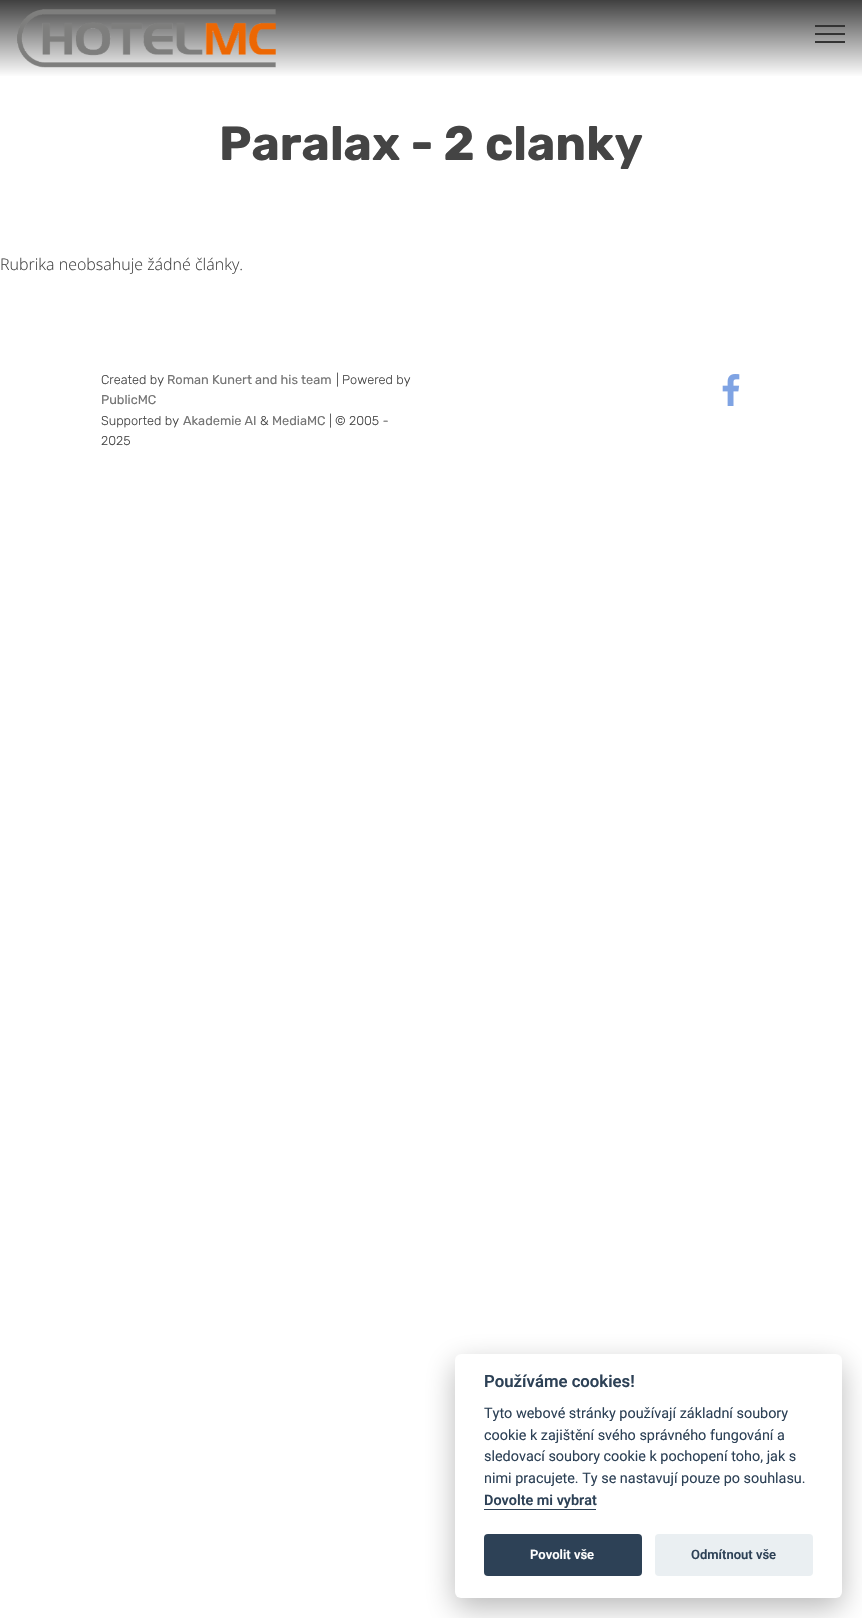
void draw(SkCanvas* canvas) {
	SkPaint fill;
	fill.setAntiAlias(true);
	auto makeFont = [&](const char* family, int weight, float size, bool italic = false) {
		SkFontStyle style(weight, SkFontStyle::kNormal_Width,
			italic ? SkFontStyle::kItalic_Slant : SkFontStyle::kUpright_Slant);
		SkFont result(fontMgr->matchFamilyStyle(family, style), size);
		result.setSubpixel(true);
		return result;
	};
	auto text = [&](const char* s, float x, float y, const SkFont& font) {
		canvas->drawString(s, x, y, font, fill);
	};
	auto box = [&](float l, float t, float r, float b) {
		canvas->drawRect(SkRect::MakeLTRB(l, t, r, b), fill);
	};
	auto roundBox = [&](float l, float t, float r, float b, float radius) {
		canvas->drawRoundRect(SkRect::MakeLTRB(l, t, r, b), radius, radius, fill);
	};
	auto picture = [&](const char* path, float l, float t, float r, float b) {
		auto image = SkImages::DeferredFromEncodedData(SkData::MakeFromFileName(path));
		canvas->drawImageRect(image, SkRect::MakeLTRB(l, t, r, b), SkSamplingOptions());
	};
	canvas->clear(0xFFFFFFFF);
	{
		const SkColor colors[] = {0xFF404040, 0xFFFFFFFF};
		const float stops[] = {0, 1};
		const SkPoint ends[] = {{431, 0}, {431, 77}};
		fill.setShader(SkGradientShader::MakeLinear(ends, colors, stops, 2, SkTileMode::kClamp));
		fill.setAlpha(255);
	}
	box(0, 0, 862, 76);
	picture("image0.png", 17, 9, 276, 68);
	fill.setShader(nullptr);
	fill.setColor(0xFF333333);
	box(815, 25, 845, 27);
	box(815, 33, 845, 35);
	box(815, 41, 845, 43);
	picture("image1.png", 722, 374, 740, 406);
	fill.setColor(0x47020203);
	fill.setMaskFilter(SkMaskFilter::MakeBlur(kNormal_SkBlurStyle, 15));
	canvas->drawRoundRect(SkRect::MakeLTRB(455, 1364, 842, 1608), 6, 6, fill);
	fill.setMaskFilter(nullptr);
	fill.setColor(0xFFFFFFFF);
	roundBox(455, 1354, 842, 1598, 6);
	fill.setColor(0xFF2D4156);
	box(484, 1509, 596, 1510);
	roundBox(484, 1534, 642, 1576, 4);
	fill.setColor(0xFFEAEFF2);
	roundBox(655, 1534, 813, 1576, 4);
	auto font1 = makeFont("Rubik", 700, 48);
	fill.setColor(0xFF444444);
	text("Paralax - 2 clanky", 219, 160, font1);
	auto font2 = makeFont("Open Sans", 300, 16);
	text("Rubrika neobsahuje žádné články.", 0, 270, font2);
	auto font3 = makeFont("Rubik", 300, 12.75f);
	text("Created by", 101, 384, font3);
	auto font4 = makeFont("Rubik", 400, 12.75f);
	fill.setColor(0xFF747474);
	text("Roman Kunert and his team", 167, 384, font4);
	fill.setColor(0xFF444444);
	text("| Powered by", 336, 384, font3);
	fill.setColor(0xFF747474);
	text("PublicMC", 101, 404, font4);
	fill.setColor(0xFF444444);
	text("Supported by", 101, 425, font3);
	fill.setColor(0xFF747474);
	text("Akademie AI", 183, 425, font4);
	fill.setColor(0xFF444444);
	text("&", 260, 425, font3);
	fill.setColor(0xFF747474);
	text("MediaMC", 272, 425, font4);
	fill.setColor(0xFF444444);
	text("| © 2005 -", 329, 425, font3);
	text("2025", 101, 445, font3);
	auto font5 = makeFont("Roboto", 600, 16.75f);
	fill.setColor(0xFF2D4156);
	text("Používáme cookies!", 484, 1387, font5);
	auto font6 = makeFont("Roboto", 400, 14.4f);
	text("Tyto webové stránky používají základní soubory", 484, 1418, font6);
	text("cookie k zajištění svého správného fungování a", 484, 1440, font6);
	text("sledovací soubory cookie k pochopení toho, jak s", 484, 1461, font6);
	text("nimi pracujete. Ty se nastavují pouze po souhlasu.", 484, 1483, font6);
	auto font7 = makeFont("Roboto", 600, 14.4f);
	text("Dovolte mi vybrat", 484, 1505, font7);
	auto font8 = makeFont("Roboto", 600, 13);
	fill.setColor(0xFFFFFFFF);
	text("Povolit vše", 530, 1559, font8);
	fill.setColor(0xFF2D4156);
	text("Odmítnout vše", 691, 1559, font8);
}
